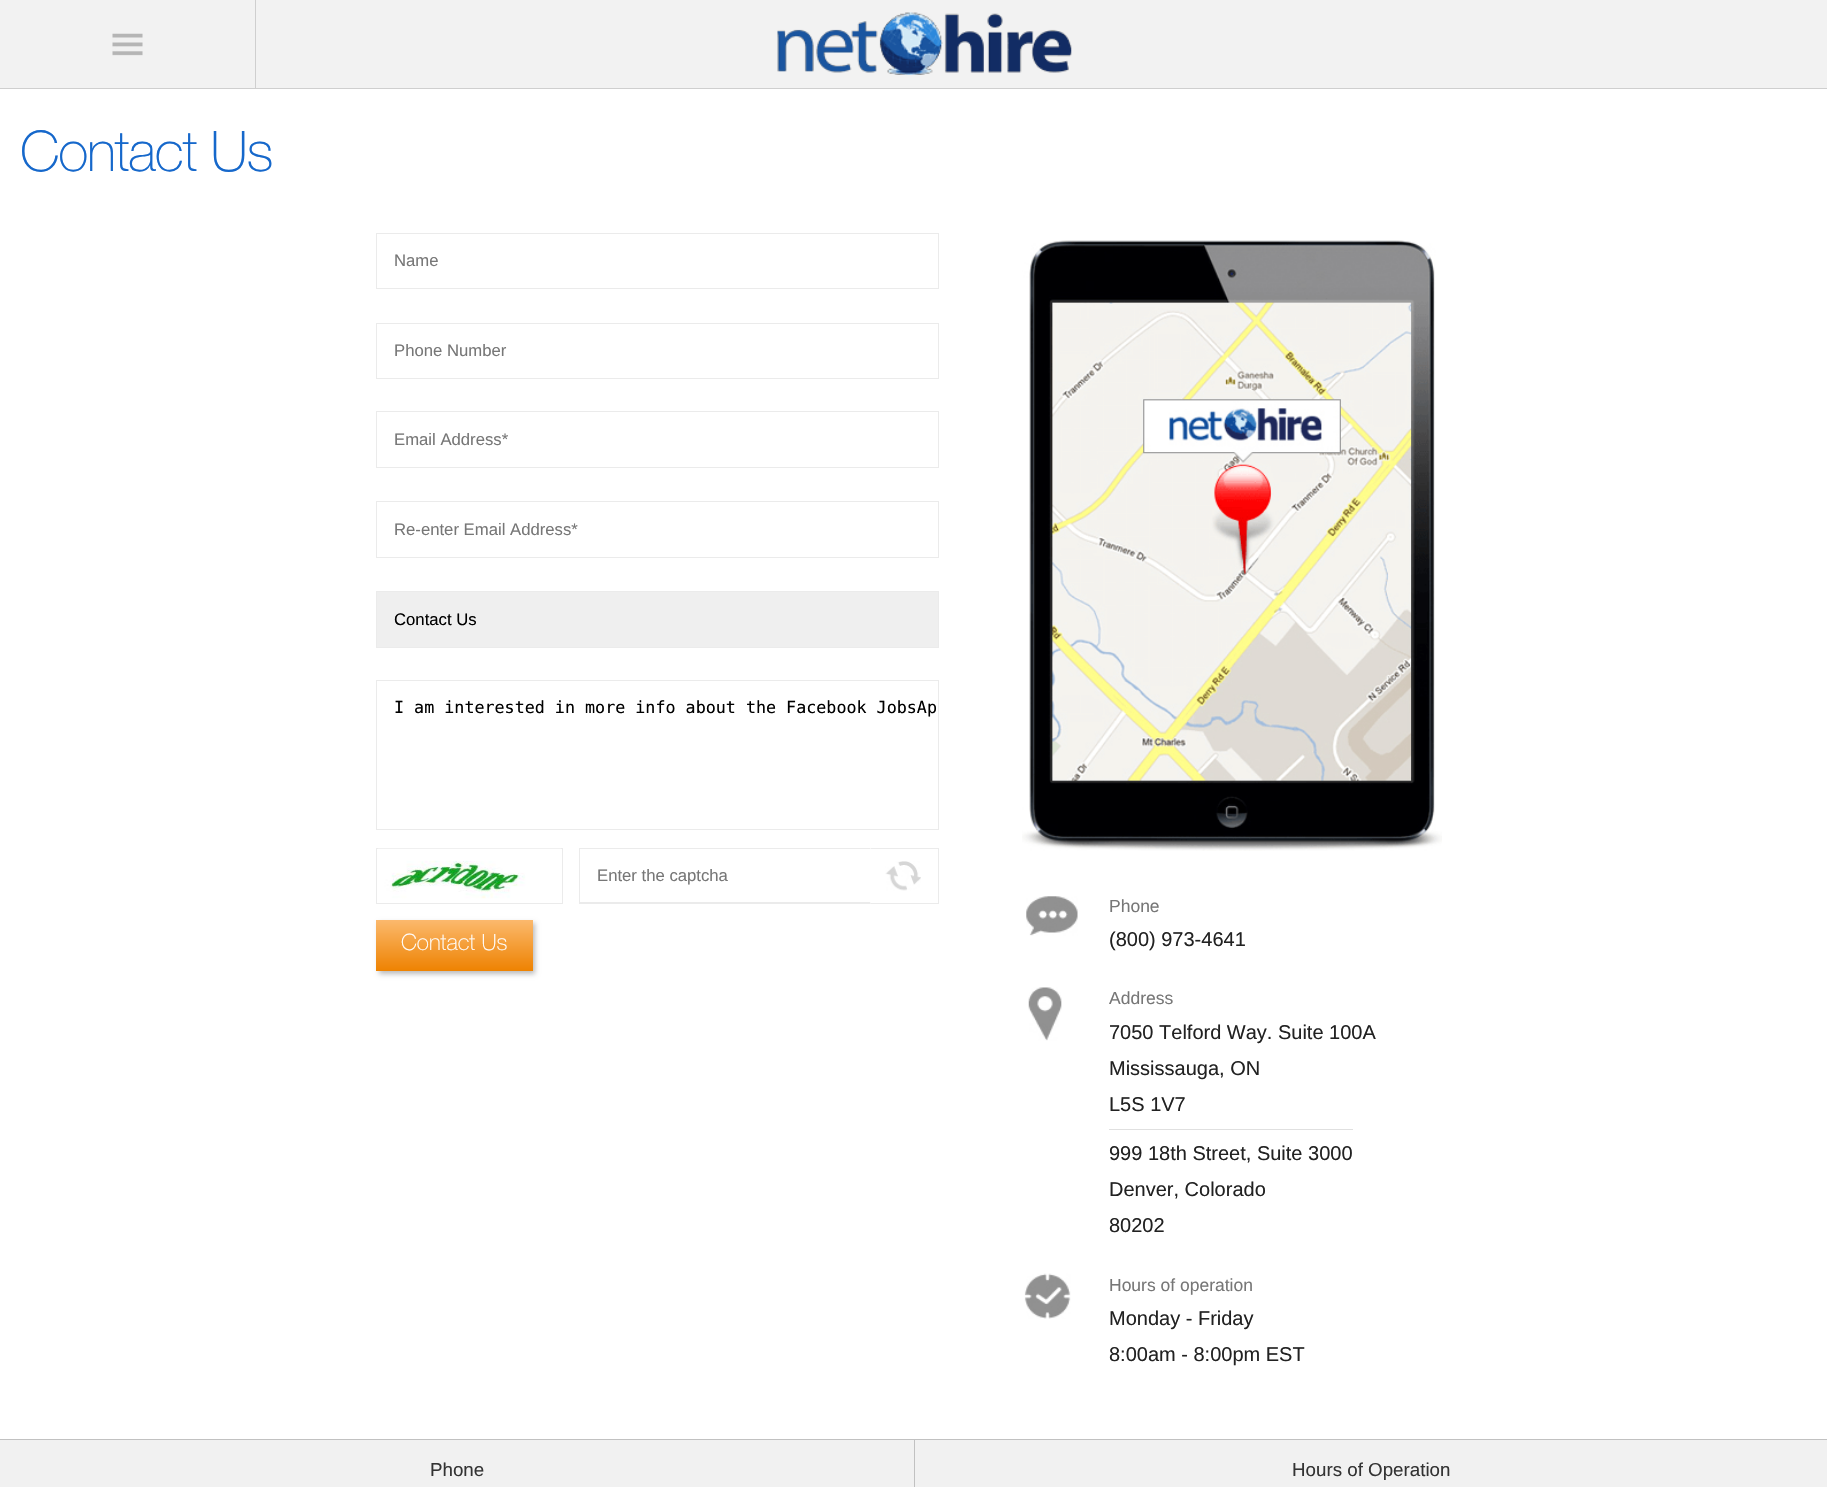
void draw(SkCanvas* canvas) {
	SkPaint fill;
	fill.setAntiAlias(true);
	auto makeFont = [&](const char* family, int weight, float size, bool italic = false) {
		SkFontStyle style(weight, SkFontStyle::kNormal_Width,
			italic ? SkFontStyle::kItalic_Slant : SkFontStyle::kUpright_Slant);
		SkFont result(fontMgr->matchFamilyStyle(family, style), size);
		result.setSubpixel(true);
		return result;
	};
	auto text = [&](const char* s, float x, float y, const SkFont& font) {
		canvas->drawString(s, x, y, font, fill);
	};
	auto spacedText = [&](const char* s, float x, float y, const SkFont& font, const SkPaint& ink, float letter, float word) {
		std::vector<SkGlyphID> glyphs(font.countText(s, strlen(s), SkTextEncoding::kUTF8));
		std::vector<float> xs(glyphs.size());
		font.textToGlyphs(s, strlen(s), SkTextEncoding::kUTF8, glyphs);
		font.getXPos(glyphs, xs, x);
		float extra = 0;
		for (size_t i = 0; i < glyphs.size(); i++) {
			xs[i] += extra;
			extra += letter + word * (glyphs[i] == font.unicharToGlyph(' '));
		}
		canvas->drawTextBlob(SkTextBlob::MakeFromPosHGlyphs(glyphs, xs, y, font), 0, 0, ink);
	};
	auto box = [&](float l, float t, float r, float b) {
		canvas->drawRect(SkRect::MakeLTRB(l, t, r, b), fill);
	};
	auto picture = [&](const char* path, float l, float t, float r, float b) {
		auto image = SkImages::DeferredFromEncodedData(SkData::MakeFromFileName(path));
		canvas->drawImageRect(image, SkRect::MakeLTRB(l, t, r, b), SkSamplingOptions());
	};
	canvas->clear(0xFFFFFFFF);
	fill.setColor(0xFFF2F2F2);
	box(0, 0, 1827, 88);
	fill.setColor(0xFFCFCFCF);
	box(0, 88, 1827, 89);
	picture("image0.png", 112, 33, 143, 56);
	box(255, 0, 256, 88);
	picture("image1.png", 777, 12, 1072, 75);
	fill.setStyle(SkPaint::kStroke_Style);
	fill.setStrokeWidth(1);
	fill.setColor(0xFFEBEBEB);
	canvas->drawRect(SkRect::MakeLTRB(376.5f, 233.5f, 938.5f, 288.5f), fill);
	canvas->drawRect(SkRect::MakeLTRB(376.5f, 323.5f, 938.5f, 378.5f), fill);
	canvas->drawRect(SkRect::MakeLTRB(376.5f, 411.5f, 938.5f, 467.5f), fill);
	canvas->drawRect(SkRect::MakeLTRB(376.5f, 501.5f, 938.5f, 557.5f), fill);
	fill.setStyle(SkPaint::kFill_Style);
	fill.setColor(0xFFEFEFEF);
	canvas->drawRect(SkRect::MakeLTRB(376.5f, 591.5f, 938.5f, 647.5f), fill);
	fill.setStyle(SkPaint::kStroke_Style);
	fill.setColor(0xFFEBEBEB);
	canvas->drawRect(SkRect::MakeLTRB(376.5f, 591.5f, 938.5f, 647.5f), fill);
	canvas->drawRect(SkRect::MakeLTRB(376.5f, 680.5f, 938.5f, 829.5f), fill);
	canvas->drawRect(SkRect::MakeLTRB(376.5f, 848.5f, 562.5f, 903.5f), fill);
	picture("image2.png", 378, 848, 561, 899);
	fill.setStyle(SkPaint::kFill_Style);
	canvas->drawPath(SkPathBuilder().moveTo(579, 848).lineTo(871, 848).lineTo(870, 849).lineTo(580, 849).close().detach(), fill);
	canvas->drawPath(SkPathBuilder().moveTo(871, 904).lineTo(579, 904).lineTo(580, 902).lineTo(870, 902).close().detach(), fill);
	box(579, 848, 580, 904);
	picture("image3.png", 885, 861, 921, 891);
	box(871, 848, 939, 849);
	box(938, 848, 939, 904);
	box(871, 903, 939, 904);
	fill.setColor(0xFFBBBBBB);
	fill.setMaskFilter(SkMaskFilter::MakeBlur(kNormal_SkBlurStyle, 2.5f));
	canvas->drawRect(SkRect::MakeLTRB(379, 923, 535, 974), fill);
	fill.setMaskFilter(nullptr);
	{
		const SkColor colors[] = {0xFFFBB96D, 0xFFEE8201};
		const float stops[] = {0, 1};
		const SkPoint ends[] = {{454, 920}, {454, 971}};
		fill.setShader(SkGradientShader::MakeLinear(ends, colors, stops, 2, SkTileMode::kClamp));
		fill.setAlpha(255);
	}
	box(376, 920, 533, 971);
	picture("image4.png", 1022, 240, 1442, 851);
	picture("image5.png", 1026, 896, 1078, 936);
	picture("image6.png", 1028, 987, 1062, 1041);
	fill.setShader(nullptr);
	fill.setColor(0xFFE0E0E0);
	box(1109, 1129, 1353, 1130);
	picture("image7.png", 1024, 1273, 1071, 1319);
	fill.setColor(0xFFF1F1F1);
	box(0, 1440, 1827, 1487);
	fill.setColor(0xFFC1C1C1);
	box(0, 1439, 1827, 1440);
	box(914, 1440, 915, 1487);
	auto font1 = makeFont("Helvetica Neue", 200, 56);
	fill.setColor(0xFF1668CB);
	spacedText("Contact Us", 20, 171, font1, fill, -1.25f, 0);
	auto font2 = makeFont("Liberation Sans", 400, 16.7f);
	fill.setColor(0xFF777777);
	text("Name", 394, 266, font2);
	text("Phone Number", 394, 356, font2);
	text("Email Address*", 394, 445, font2);
	text("Re-enter Email Address*", 394, 535, font2);
	fill.setColor(0xFF000000);
	text("Contact Us", 394, 625, font2);
	auto font3 = makeFont("DejaVu Sans Mono", 400, 16.7f);
	text("I am interested in more info about the Facebook JobsAp", 394, 713, font3);
	fill.setColor(0xFF777777);
	text("Enter the captcha", 597, 881, font2);
	auto font4 = makeFont("Helvetica Neue", 200, 22.5f);
	fill.setColor(0xFFFFFFFF);
	text("Contact Us", 401, 950, font4);
	auto font5 = makeFont("Liberation Sans", 400, 17.5f);
	fill.setColor(0xFF777777);
	text("Phone", 1109, 912, font5);
	auto font6 = makeFont("Liberation Sans", 400, 20);
	fill.setColor(0xFF222222);
	text("(800) 973-4641", 1109, 946, font6);
	fill.setColor(0xFF777777);
	text("Address", 1109, 1004, font5);
	fill.setColor(0xFF222222);
	text("7050 Telford Way. Suite 100A", 1109, 1039, font6);
	text("Mississauga, ON", 1109, 1075, font6);
	text("L5S 1V7", 1109, 1111, font6);
	text("999 18th Street, Suite 3000", 1109, 1160, font6);
	text("Denver, Colorado", 1109, 1196, font6);
	text("80202", 1109, 1232, font6);
	fill.setColor(0xFF777777);
	text("Hours of operation", 1109, 1291, font5);
	fill.setColor(0xFF222222);
	text("Monday - Friday", 1109, 1325, font6);
	text("8:00am - 8:00pm EST", 1109, 1361, font6);
	auto font7 = makeFont("Liberation Sans", 400, 18.75f);
	fill.setColor(0xFF333333);
	text("Phone", 430, 1476, font7);
	text("Hours of Operation", 1292, 1476, font7);
}
